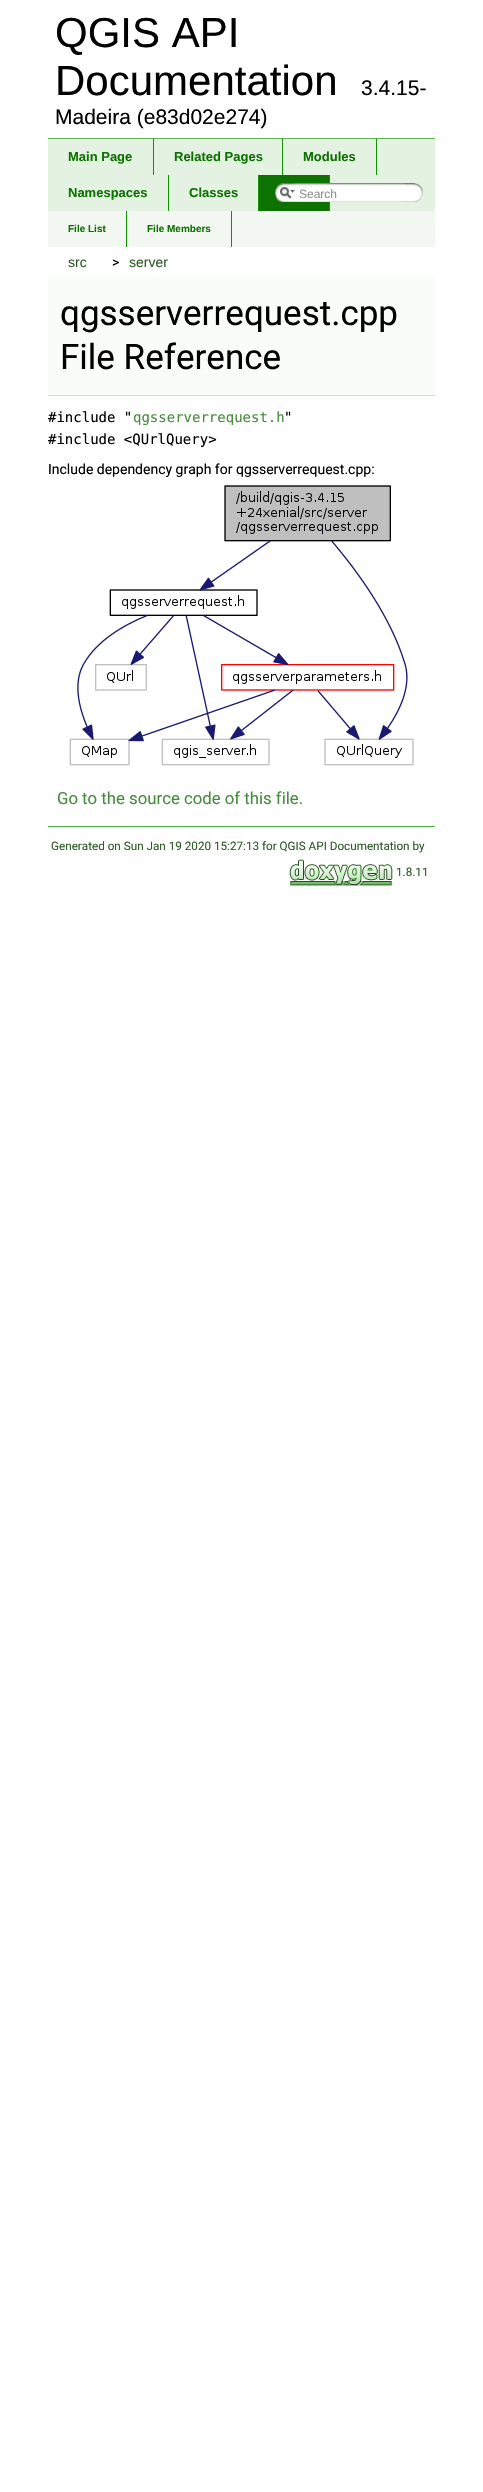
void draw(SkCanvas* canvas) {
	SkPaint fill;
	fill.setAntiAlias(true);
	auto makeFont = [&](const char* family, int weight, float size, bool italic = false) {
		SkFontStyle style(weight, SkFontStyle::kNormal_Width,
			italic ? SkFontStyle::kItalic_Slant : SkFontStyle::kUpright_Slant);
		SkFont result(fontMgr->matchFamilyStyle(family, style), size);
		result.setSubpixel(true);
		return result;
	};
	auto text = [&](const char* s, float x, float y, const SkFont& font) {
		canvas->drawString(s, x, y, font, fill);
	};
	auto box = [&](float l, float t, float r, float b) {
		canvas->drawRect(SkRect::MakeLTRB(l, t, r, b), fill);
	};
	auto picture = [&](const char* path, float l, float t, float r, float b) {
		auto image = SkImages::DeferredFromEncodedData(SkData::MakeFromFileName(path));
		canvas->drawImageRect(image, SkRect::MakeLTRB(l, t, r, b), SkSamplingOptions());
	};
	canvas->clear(0xFFFFFFFF);
	fill.setColor(0xFF5FB453);
	box(48, 138, 435, 139);
	fill.setColor(0xFFE3F2E1);
	box(48, 139, 435, 211);
	fill.setColor(0xFF129300);
	box(153, 139, 154, 175);
	box(282, 139, 283, 175);
	box(376, 139, 377, 175);
	box(168, 175, 169, 211);
	box(258, 175, 259, 211);
	fill.setColor(0xFF0D7200);
	box(259, 175, 329, 211);
	fill.setColor(0xFF129300);
	box(329, 175, 330, 211);
	picture("image0.png", 275, 183, 295, 202);
	picture("image1.png", 280, 187, 295, 199);
	picture("image2.png", 295, 183, 405, 202);
	picture("image3.png", 405, 183, 423, 202);
	fill.setColor(0xFFF3F7F2);
	box(48, 211, 435, 247);
	fill.setColor(0xFF129300);
	box(126, 211, 127, 247);
	box(231, 211, 232, 247);
	fill.setColor(0xFFF9FCF9);
	box(48, 277, 435, 395);
	fill.setColor(0xFFC8E5C4);
	box(48, 395, 435, 396);
	picture("image4.png", 69, 485, 414, 766);
	fill.setColor(0xFF55AA4A);
	box(48, 826, 435, 827);
	picture("image5.png", 289, 859, 393, 886);
	auto font1 = makeFont("Liberation Sans", 400, 42);
	fill.setColor(0xFF000000);
	text("QGIS API", 55, 47, font1);
	text("Documentation", 55, 95, font1);
	auto font2 = makeFont("Liberation Sans", 400, 21);
	text("3.4.15-", 361, 95, font2);
	text("Madeira (e83d02e274)", 55, 124, font2);
	auto font3 = makeFont("Liberation Sans", 700, 13);
	fill.setColor(0xFF0D7200);
	text("Main Page", 68, 161, font3);
	text("Related Pages", 174, 161, font3);
	text("Modules", 303, 161, font3);
	text("Namespaces", 68, 197, font3);
	text("Classes", 189, 197, font3);
	auto font4 = makeFont("Liberation Sans", 400, 12);
	fill.setColor(0xFF909090);
	text("Search", 299, 198, font4);
	auto font5 = makeFont("Liberation Sans", 700, 10);
	fill.setColor(0xFF0D7200);
	text("File List", 68, 232, font5);
	text("File Members", 147, 232, font5);
	auto font6 = makeFont("Liberation Sans", 400, 14);
	fill.setColor(0xFF2E5D28);
	text("src", 68, 267, font6);
	auto font7 = makeFont("Roboto", 400, 14);
	fill.setColor(0xFF000000);
	text(">", 112, 267, font7);
	fill.setColor(0xFF2E5D28);
	text("server", 129, 267, font6);
	auto font8 = makeFont("Roboto", 400, 35);
	fill.setColor(0xFF000000);
	text("qgsserverrequest.cpp", 60, 325, font8);
	text("File Reference", 60, 369, font8);
	auto font9 = makeFont("DejaVu Sans Mono", 400, 14);
	text("#include \"", 48, 422, font9);
	fill.setColor(0xFF468C3D);
	text("qgsserverrequest.h", 133, 422, font9);
	fill.setColor(0xFF000000);
	text("\"", 284, 422, font9);
	text("#include <QUrlQuery>", 48, 444, font9);
	text("Include dependency graph for qgsserverrequest.cpp:", 48, 474, font7);
	auto font10 = makeFont("Roboto", 400, 16.75f);
	fill.setColor(0xFF468C3D);
	text("Go to the source code of this file.", 57, 804, font10);
	auto font11 = makeFont("Roboto", 400, 11.7f);
	fill.setColor(0xFF2E5D28);
	text("Generated on Sun Jan 19 2020 15:27:13 for QGIS API Documentation by", 51, 850, font11);
	text("1.8.11", 396, 876, font11);
}
